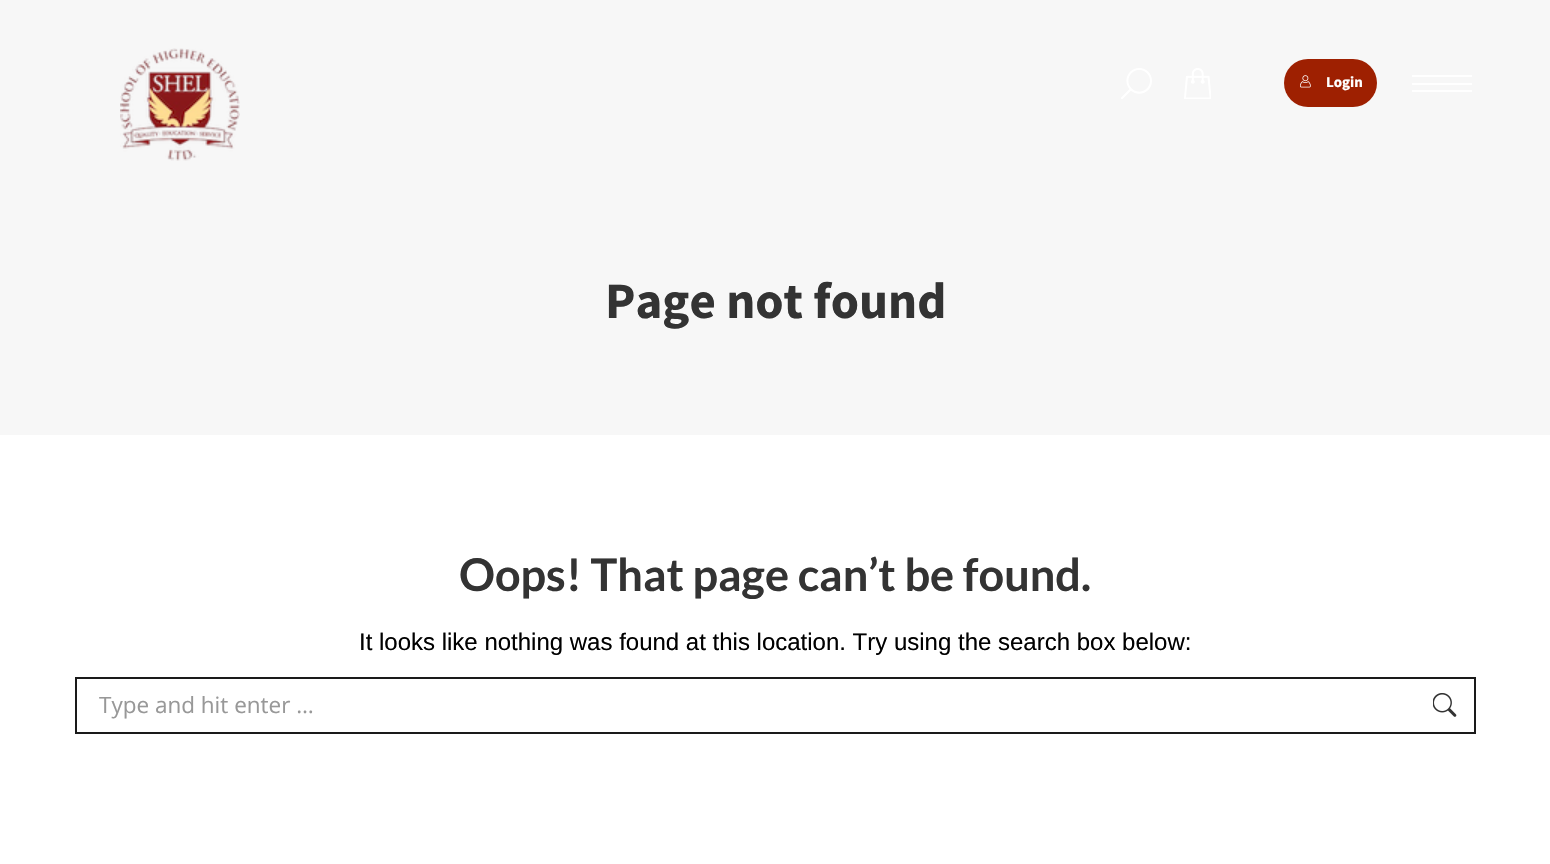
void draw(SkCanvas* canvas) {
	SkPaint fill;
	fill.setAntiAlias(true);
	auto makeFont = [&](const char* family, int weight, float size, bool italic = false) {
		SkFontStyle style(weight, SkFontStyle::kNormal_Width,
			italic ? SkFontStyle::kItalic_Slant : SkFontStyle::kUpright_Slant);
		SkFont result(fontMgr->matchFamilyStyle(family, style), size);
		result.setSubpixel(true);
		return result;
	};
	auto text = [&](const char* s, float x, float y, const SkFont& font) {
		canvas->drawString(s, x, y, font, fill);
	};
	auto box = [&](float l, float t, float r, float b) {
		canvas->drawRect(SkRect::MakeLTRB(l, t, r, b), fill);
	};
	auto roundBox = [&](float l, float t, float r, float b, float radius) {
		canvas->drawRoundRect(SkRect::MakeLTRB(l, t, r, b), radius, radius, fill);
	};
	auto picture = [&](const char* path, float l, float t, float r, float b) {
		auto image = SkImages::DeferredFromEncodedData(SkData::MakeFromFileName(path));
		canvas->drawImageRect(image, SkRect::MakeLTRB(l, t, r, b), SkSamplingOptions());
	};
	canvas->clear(0xFFFFFFFF);
	fill.setColor(0xFFF7F7F7);
	box(0, 0, 1550, 435);
	picture("image0.png", 120, 48, 240, 161);
	picture("image1.png", 1121, 68, 1152, 99);
	picture("image2.png", 1184, 68, 1211, 99);
	fill.setColor(0xFF9E2001);
	roundBox(1284, 59, 1377, 107, 24);
	picture("image3.png", 1300, 75, 1311, 88);
	fill.setColor(0xFFFFFFFF);
	box(1412, 75, 1472, 77);
	box(1412, 83, 1472, 85);
	box(1412, 90, 1472, 92);
	fill.setStyle(SkPaint::kStroke_Style);
	fill.setStrokeWidth(2);
	fill.setColor(0xFF1A1A1A);
	canvas->drawRect(SkRect::MakeLTRB(76, 678, 1475, 733), fill);
	picture("image4.png", 1433, 693, 1457, 717);
	auto font1 = makeFont("Source Sans Pro", 700, 15);
	fill.setStyle(SkPaint::kFill_Style);
	fill.setColor(0xFFFFFFFF);
	text("Login", 1326, 87, font1);
	auto font2 = makeFont("Source Sans Pro", 700, 51);
	fill.setColor(0xFF333333);
	text("Page not found", 605, 318, font2);
	auto font3 = makeFont("Lato", 700, 45);
	text("Oops! That page can’t be found.", 459, 591, font3);
	auto font4 = makeFont("Liberation Sans", 400, 24);
	fill.setColor(0xFF000000);
	text("It looks like nothing was found at this location. Try using the search box below:", 359, 650, font4);
	auto font5 = makeFont("Open Sans", 400, 22.5f);
	fill.setColor(0xFF989898);
	text("Type and hit enter …", 99, 713, font5);
}
